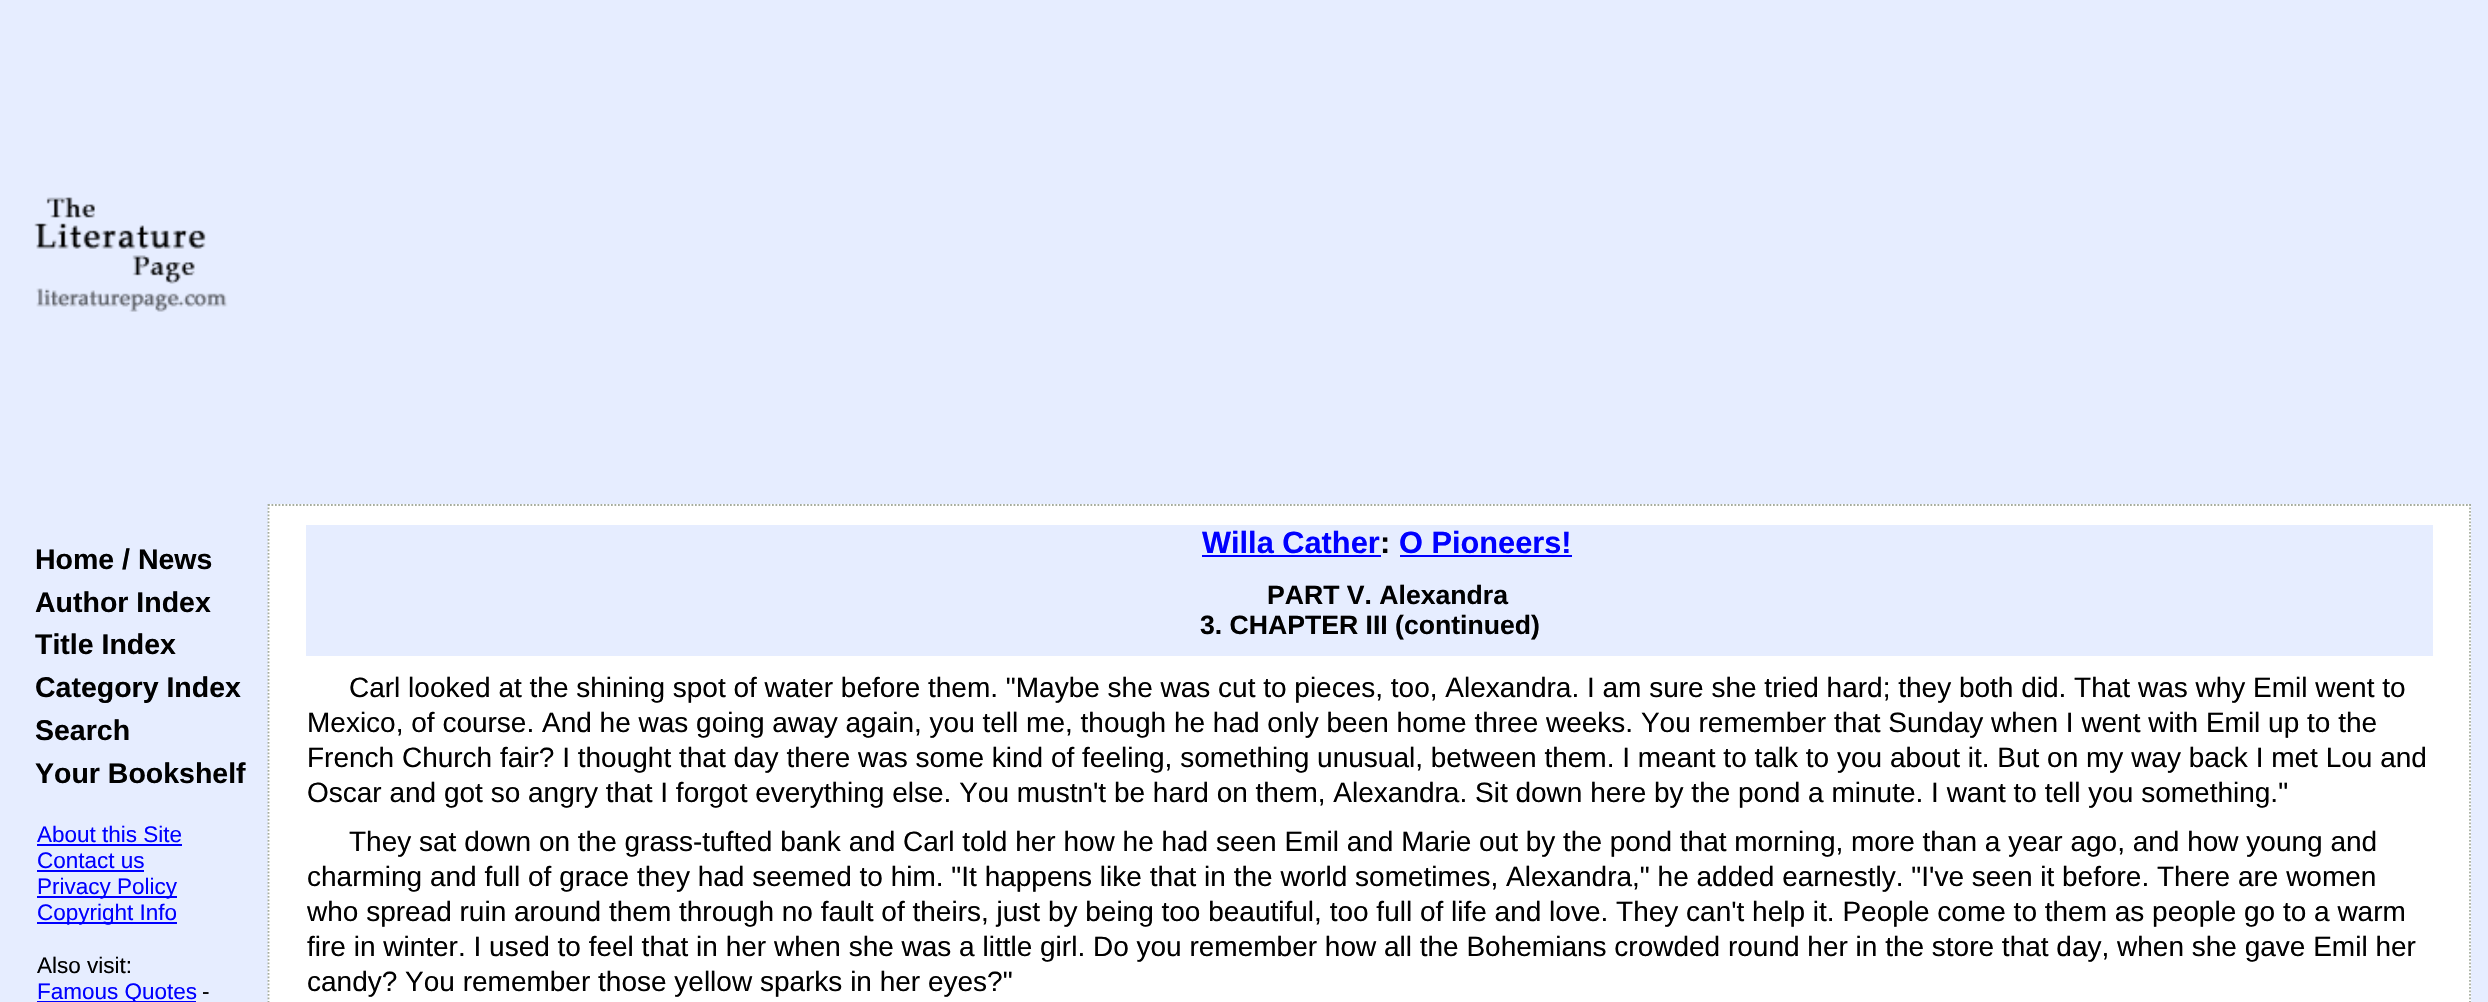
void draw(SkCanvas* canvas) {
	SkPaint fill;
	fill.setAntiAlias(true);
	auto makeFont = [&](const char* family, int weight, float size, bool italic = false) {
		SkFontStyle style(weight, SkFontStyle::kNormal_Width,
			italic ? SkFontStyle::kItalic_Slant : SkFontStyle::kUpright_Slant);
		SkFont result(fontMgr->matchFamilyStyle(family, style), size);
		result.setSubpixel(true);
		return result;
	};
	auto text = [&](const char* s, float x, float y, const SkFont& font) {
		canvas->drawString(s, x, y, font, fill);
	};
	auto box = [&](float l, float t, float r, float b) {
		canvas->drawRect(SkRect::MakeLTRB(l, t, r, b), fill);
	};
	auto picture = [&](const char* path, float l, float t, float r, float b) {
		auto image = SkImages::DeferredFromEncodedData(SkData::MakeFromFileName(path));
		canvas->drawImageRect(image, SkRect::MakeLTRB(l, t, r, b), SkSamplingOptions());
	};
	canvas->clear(0xFFE6EDFF);
	picture("image0.png", 34, 197, 228, 312);
	fill.setColor(0xFF0000FF);
	box(37, 844, 182, 846);
	box(37, 870, 144, 872);
	box(37, 896, 177, 898);
	box(37, 922, 177, 924);
	box(37, 1001, 196, 1002);
	fill.setColor(0xFFFFFFFF);
	box(268, 504, 2471, 1002);
	fill.setStyle(SkPaint::kStroke_Style);
	fill.setStrokeWidth(1.8f);
	fill.setColor(0xFFA6AD9F);
	fill.setPathEffect(SkDashPathEffect::Make({{1.75f, 1.75f}}, 0));
	canvas->drawPath(SkPathBuilder().moveTo(268, 505).lineTo(2471, 505).detach(), fill);
	fill.setPathEffect(nullptr);
	fill.setPathEffect(SkDashPathEffect::Make({{1.75f, 1.75f}}, 0));
	canvas->drawPath(SkPathBuilder().moveTo(2470, 504).lineTo(2470, 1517).detach(), fill);
	fill.setPathEffect(nullptr);
	fill.setPathEffect(SkDashPathEffect::Make({{1.75f, 1.75f}}, 0));
	canvas->drawPath(SkPathBuilder().moveTo(268.5f, 504).lineTo(268.5f, 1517).detach(), fill);
	fill.setPathEffect(nullptr);
	fill.setStyle(SkPaint::kFill_Style);
	fill.setColor(0xFFE6EDFF);
	box(306, 525, 2433, 656);
	fill.setColor(0xFF0000FF);
	box(1202, 555, 1381, 557);
	box(1400, 555, 1572, 557);
	auto font1 = makeFont("Liberation Sans", 700, 28.5f);
	fill.setColor(0xFF000000);
	text("Home / News", 35, 569, font1);
	text("Author Index", 35, 612, font1);
	text("Title Index", 35, 654, font1);
	text("Category Index", 35, 697, font1);
	text("Search", 35, 740, font1);
	text("Your Bookshelf", 35, 783, font1);
	auto font2 = makeFont("Liberation Sans", 400, 22.5f);
	fill.setColor(0xFF0000FF);
	text("About this Site", 37, 842, font2);
	text("Contact us", 37, 868, font2);
	text("Privacy Policy", 37, 894, font2);
	text("Copyright Info", 37, 920, font2);
	fill.setColor(0xFF000000);
	text("Also visit:", 37, 973, font2);
	fill.setColor(0xFF0000FF);
	text("Famous Quotes", 37, 999, font2);
	fill.setColor(0xFF000000);
	text("-", 202, 999, font2);
	auto font3 = makeFont("Liberation Sans", 700, 30.75f);
	fill.setColor(0xFF0000FF);
	text("Willa Cather", 1202, 553, font3);
	fill.setColor(0xFF000000);
	text(":", 1380, 553, font3);
	fill.setColor(0xFF0000FF);
	text("O Pioneers!", 1399, 553, font3);
	auto font4 = makeFont("Liberation Sans", 700, 26.6f);
	fill.setColor(0xFF000000);
	text("PART V. Alexandra", 1267, 604, font4);
	text("3. CHAPTER III (continued)", 1200, 634, font4);
	auto font5 = makeFont("Liberation Sans", 400, 28);
	text("Carl looked at the shining spot of water before them. \"Maybe she was cut to pieces, too, Alexandra. I am sure she tried hard; they both did. That was why Emil went to", 349, 697, font5);
	text("Mexico, of course. And he was going away again, you tell me, though he had only been home three weeks. You remember that Sunday when I went with Emil up to the", 307, 732, font5);
	text("French Church fair? I thought that day there was some kind of feeling, something unusual, between them. I meant to talk to you about it. But on my way back I met Lou and", 307, 767, font5);
	text("Oscar and got so angry that I forgot everything else. You mustn't be hard on them, Alexandra. Sit down here by the pond a minute. I want to tell you something.\"", 307, 802, font5);
	text("They sat down on the grass-tufted bank and Carl told her how he had seen Emil and Marie out by the pond that morning, more than a year ago, and how young and", 349, 851, font5);
	text("charming and full of grace they had seemed to him. \"It happens like that in the world sometimes, Alexandra,\" he added earnestly. \"I've seen it before. There are women", 307, 886, font5);
	text("who spread ruin around them through no fault of theirs, just by being too beautiful, too full of life and love. They can't help it. People come to them as people go to a warm", 307, 921, font5);
	text("fire in winter. I used to feel that in her when she was a little girl. Do you remember how all the Bohemians crowded round her in the store that day, when she gave Emil her", 307, 956, font5);
	text("candy? You remember those yellow sparks in her eyes?\"", 307, 991, font5);
}
